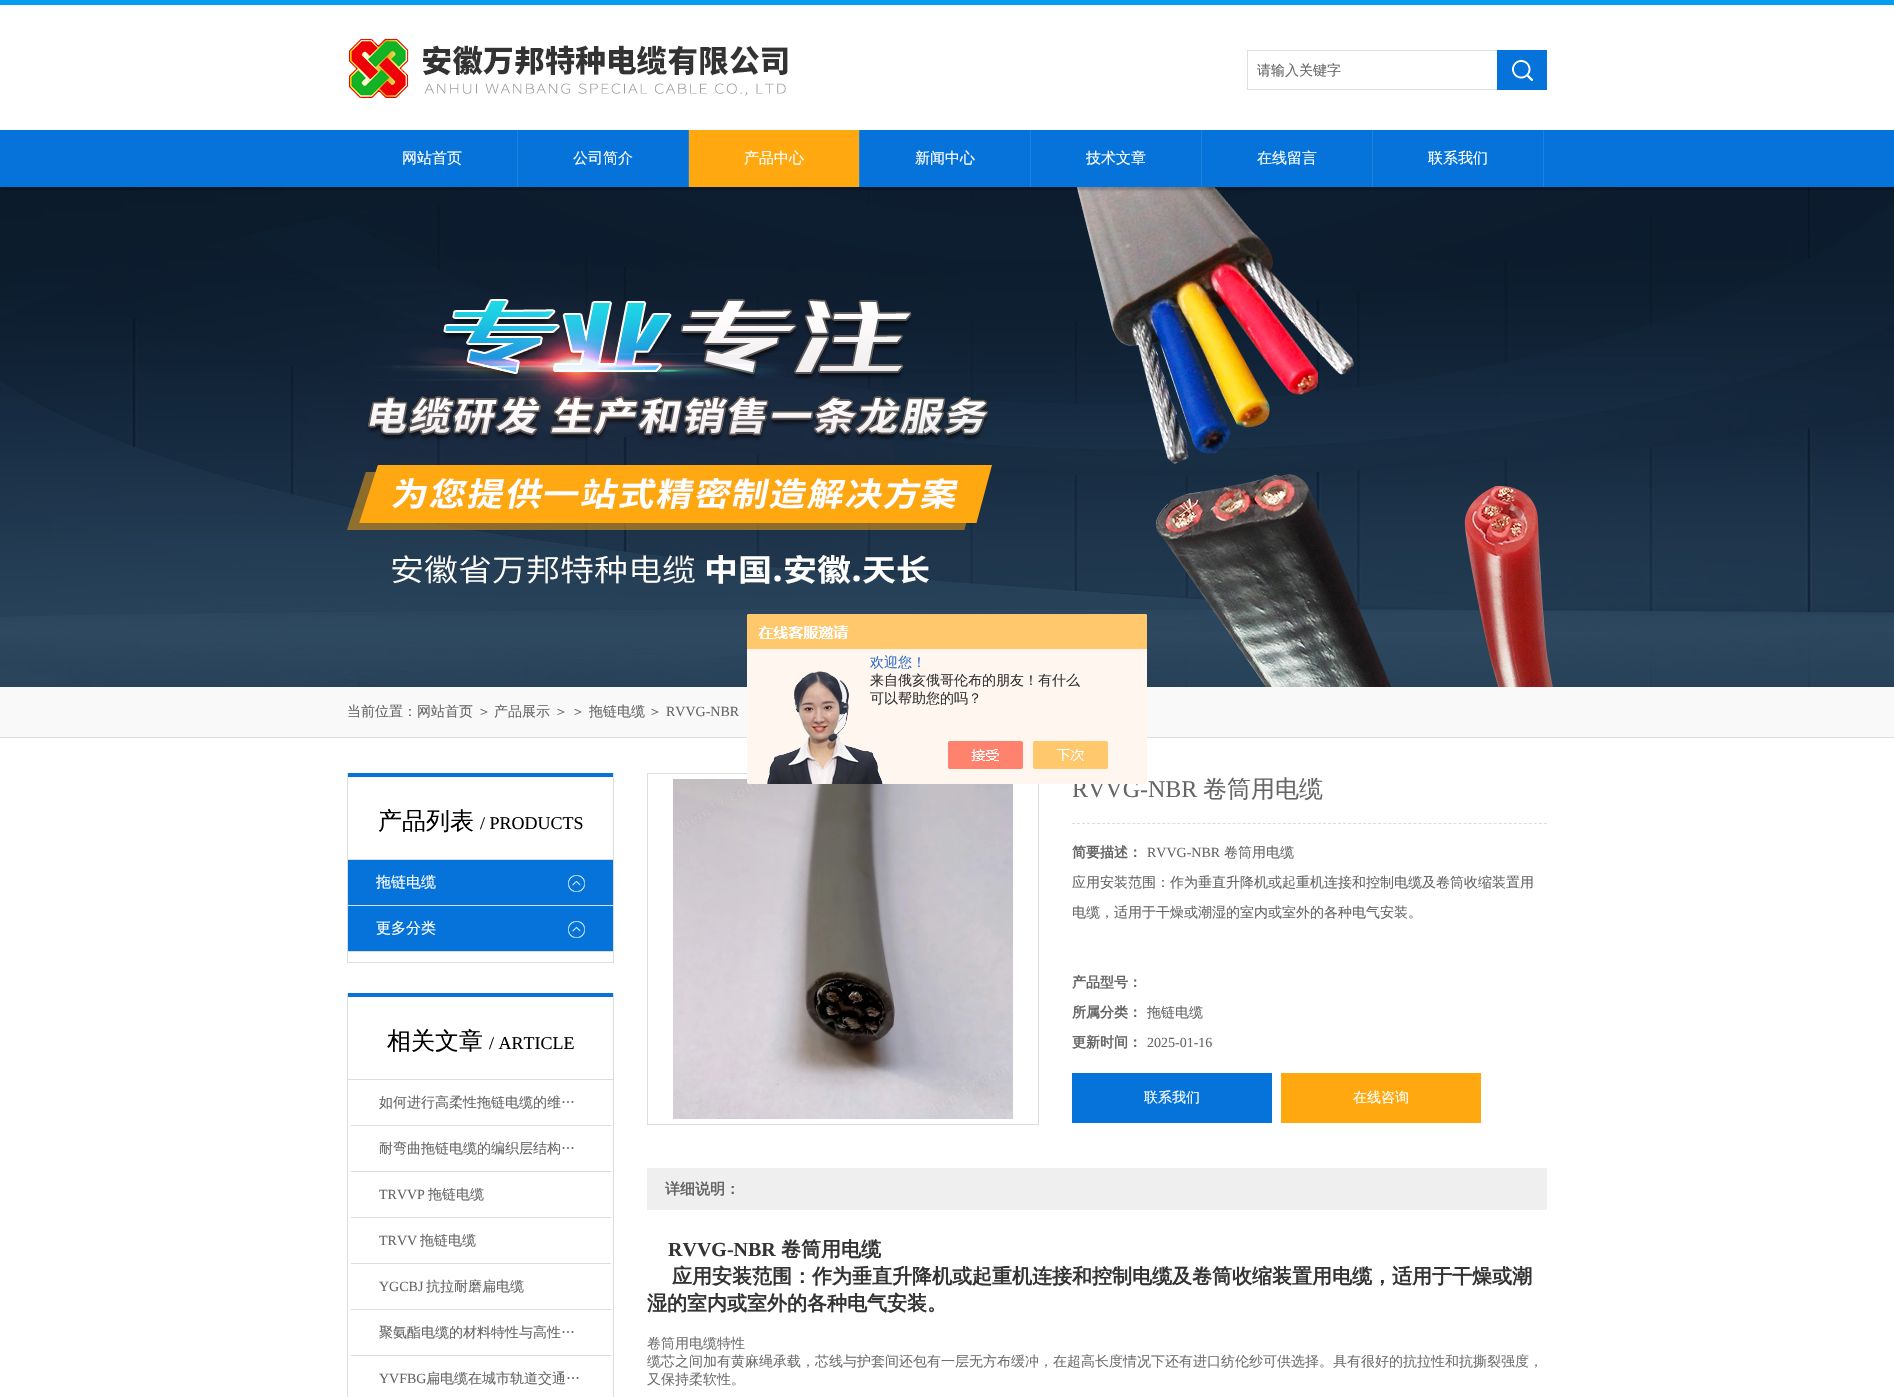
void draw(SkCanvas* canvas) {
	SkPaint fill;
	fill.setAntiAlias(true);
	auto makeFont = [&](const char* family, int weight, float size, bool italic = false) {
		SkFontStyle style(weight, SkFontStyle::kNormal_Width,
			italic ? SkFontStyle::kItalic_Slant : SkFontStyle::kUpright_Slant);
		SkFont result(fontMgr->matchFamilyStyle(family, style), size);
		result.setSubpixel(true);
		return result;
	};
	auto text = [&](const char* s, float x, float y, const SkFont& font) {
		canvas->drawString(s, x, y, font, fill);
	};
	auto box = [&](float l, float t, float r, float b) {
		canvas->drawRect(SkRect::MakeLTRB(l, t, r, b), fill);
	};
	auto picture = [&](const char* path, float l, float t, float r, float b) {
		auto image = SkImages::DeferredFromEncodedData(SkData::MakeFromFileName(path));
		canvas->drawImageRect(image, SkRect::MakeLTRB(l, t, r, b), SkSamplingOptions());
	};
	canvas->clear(0xFFFFFFFF);
	fill.setColor(0xFF039EEE);
	box(0, 0, 1894, 5);
	picture("image0.png", 348, 38, 788, 99);
	fill.setColor(0xFFDFDFDF);
	box(1247, 50, 1497, 51);
	box(1247, 89, 1497, 90);
	box(1247, 50, 1248, 90);
	fill.setColor(0xFF0573DA);
	box(1497, 50, 1547, 90);
	picture("image1.png", 1512, 60, 1533, 81);
	picture("image2.png", 0, 187, 1894, 687);
	fill.setColor(0x33000000);
	fill.setMaskFilter(SkMaskFilter::MakeBlur(kNormal_SkBlurStyle, 1));
	canvas->drawRect(SkRect::MakeLTRB(1, 135, 1893, 190), fill);
	fill.setMaskFilter(nullptr);
	fill.setColor(0xFF0573DA);
	box(0, 130, 1894, 187);
	fill.setColor(0xFF1E81DE);
	box(517, 130, 518, 187);
	box(688, 130, 689, 187);
	fill.setColor(0xFFFFA810);
	box(689, 130, 859, 187);
	fill.setColor(0xFF1E81DE);
	box(859, 130, 860, 187);
	box(1030, 130, 1031, 187);
	box(1201, 130, 1202, 187);
	box(1372, 130, 1373, 187);
	box(1543, 130, 1544, 187);
	fill.setColor(0xFFF9F9F9);
	box(0, 687, 1894, 737);
	fill.setColor(0xFFDFDFDF);
	box(0, 737, 1894, 738);
	fill.setColor(0xFFDDDDDD);
	box(613, 773, 614, 963);
	box(347, 962, 614, 963);
	box(347, 773, 348, 963);
	fill.setColor(0xFF0573DA);
	box(348, 773, 613, 777);
	fill.setColor(0xFFDDDDDD);
	box(348, 859, 613, 860);
	fill.setColor(0xFF0573DA);
	box(348, 860, 613, 905);
	picture("image4.png", 568, 875, 585, 892);
	fill.setColor(0xFFDDDDDD);
	box(348, 905, 613, 906);
	fill.setColor(0xFF0573DA);
	box(348, 906, 613, 951);
	picture("image4.png", 568, 921, 585, 938);
	fill.setColor(0xFFDDDDDD);
	box(348, 951, 613, 952);
	box(613, 993, 614, 1397);
	box(347, 993, 348, 1397);
	fill.setColor(0xFF0573DA);
	box(348, 993, 613, 997);
	fill.setColor(0xFFDDDDDD);
	box(348, 1079, 613, 1080);
	box(351, 1125, 611, 1126);
	box(351, 1171, 611, 1172);
	box(351, 1217, 611, 1218);
	box(351, 1263, 611, 1264);
	box(351, 1309, 611, 1310);
	box(351, 1355, 611, 1356);
	fill.setStyle(SkPaint::kStroke_Style);
	fill.setStrokeWidth(1);
	canvas->drawRect(SkRect::MakeLTRB(647.5f, 773.5f, 1038.5f, 1124.5f), fill);
	picture("image5.png", 673, 779, 1013, 1119);
	fill.setPathEffect(SkDashPathEffect::Make({{3, 2.02f}}, 0));
	canvas->drawPath(SkPathBuilder().moveTo(1072, 823.5f).lineTo(1547, 823.5f).detach(), fill);
	fill.setPathEffect(nullptr);
	fill.setStyle(SkPaint::kFill_Style);
	fill.setColor(0xFF0573DA);
	box(1072, 1073, 1272, 1123);
	fill.setColor(0xFFFFA810);
	box(1281, 1073, 1481, 1123);
	fill.setColor(0xFFEFEFEF);
	box(647, 1168, 1547, 1210);
	auto font1 = makeFont("WenQuanYi Zen Hei", 500, 14);
	fill.setColor(0xFF666666);
	text("请输入关键字", 1257, 75, font1);
	auto font2 = makeFont("WenQuanYi Zen Hei", 500, 15);
	fill.setColor(0xFFFFFFFF);
	text("网站首页", 402, 163, font2);
	text("公司简介", 573, 163, font2);
	text("产品中心", 744, 163, font2);
	text("新闻中心", 915, 163, font2);
	text("技术文章", 1086, 163, font2);
	text("在线留言", 1257, 163, font2);
	text("联系我们", 1428, 163, font2);
	fill.setColor(0xFF666666);
	text("当前位置：网站首页", 347, 716, font1);
	text("＞", 477, 716, font1);
	text("产品展示", 494, 716, font1);
	text("＞", 554, 716, font1);
	text("＞", 571, 716, font1);
	text("拖链电缆", 589, 716, font1);
	text("＞", 648, 716, font1);
	auto font3 = makeFont("Liberation Serif", 400, 14);
	text("RVVG-NBR", 666, 716, font3);
	auto font4 = makeFont("WenQuanYi Zen Hei", 500, 24);
	fill.setColor(0xFF000000);
	text("产品列表", 378, 829, font4);
	auto font5 = makeFont("Liberation Serif", 400, 18);
	text("/ PRODUCTS", 480, 829, font5);
	fill.setColor(0xFFFFFFFF);
	text("拖链电缆", 376, 887, font2);
	text("更多分类", 376, 933, font2);
	fill.setColor(0xFF000000);
	text("相关文章", 387, 1049, font4);
	text("/ ARTICLE", 489, 1049, font5);
	fill.setColor(0xFF666666);
	text("如何进行高柔性拖链电缆的维…", 379, 1107, font1);
	text("耐弯曲拖链电缆的编织层结构…", 379, 1153, font1);
	text("TRVVP", 379, 1199, font3);
	text("拖链电缆", 428, 1199, font1);
	text("TRVV", 379, 1245, font3);
	text("拖链电缆", 420, 1245, font1);
	text("YGCBJ", 379, 1291, font3);
	text("抗拉耐磨扁电缆", 426, 1291, font1);
	text("聚氨酯电缆的材料特性与高性…", 379, 1337, font1);
	text("YVFBG", 379, 1383, font3);
	text("扁电缆在城市轨道交通…", 426, 1383, font1);
	auto font6 = makeFont("Liberation Serif", 400, 24);
	text("RVVG-NBR", 1072, 797, font6);
	picture("image3.png", 747, 614, 1147, 784);
	fill.setColor(0xFF343434);
	text("可以帮助您的吗？", 870, 703, font1);
	text("来自俄亥俄哥伦布的朋友！有什么", 870, 685, font1);
	fill.setColor(0xFF2E6EC6);
	text("欢迎您！", 870, 667, font1);
	fill.setColor(0xFF666666);
	text("卷筒用电缆", 1203, 797, font4);
	auto font7 = makeFont("WenQuanYi Zen Hei", 700, 14);
	text("简要描述：", 1072, 857, font7);
	text("RVVG-NBR", 1147, 857, font3);
	text("卷筒用电缆", 1224, 857, font1);
	text("应用安装范围：作为垂直升降机或起重机连接和控制电缆及卷筒收缩装置用", 1072, 887, font1);
	text("电缆，适用于干燥或潮湿的室内或室外的各种电气安装。", 1072, 917, font1);
	text("产品型号：", 1072, 987, font7);
	text("所属分类：", 1072, 1017, font7);
	text("拖链电缆", 1147, 1017, font1);
	text("更新时间：", 1072, 1047, font7);
	text("2025-01-16", 1147, 1047, font3);
	fill.setColor(0xFFFFFFFF);
	text("联系我们", 1144, 1102, font1);
	text("在线咨询", 1353, 1102, font1);
	auto font8 = makeFont("WenQuanYi Zen Hei", 700, 15);
	fill.setColor(0xFF666666);
	text("详细说明：", 665, 1194, font8);
	auto font9 = makeFont("Liberation Serif", 700, 20);
	fill.setColor(0xFF343434);
	text("RVVG-NBR", 668, 1256, font9);
	auto font10 = makeFont("WenQuanYi Zen Hei", 700, 20);
	text("卷筒用电缆", 781, 1256, font10);
	text("应用安装范围：作为垂直升降机或起重机连接和控制电缆及卷筒收缩装置用电缆，适用于干燥或潮", 672, 1283, font10);
	text("湿的室内或室外的各种电气安装。", 647, 1310, font10);
	fill.setColor(0xFF707070);
	text("卷筒用电缆特性", 647, 1348, font1);
	text("缆芯之间加有黄麻绳承载，芯线与护套间还包有一层无方布缓冲，在超高长度情况下还有进口纺伦纱可供选择。具有很好的抗拉性和抗撕裂强度，", 647, 1366, font1);
	text("又保持柔软性。", 647, 1384, font1);
}
